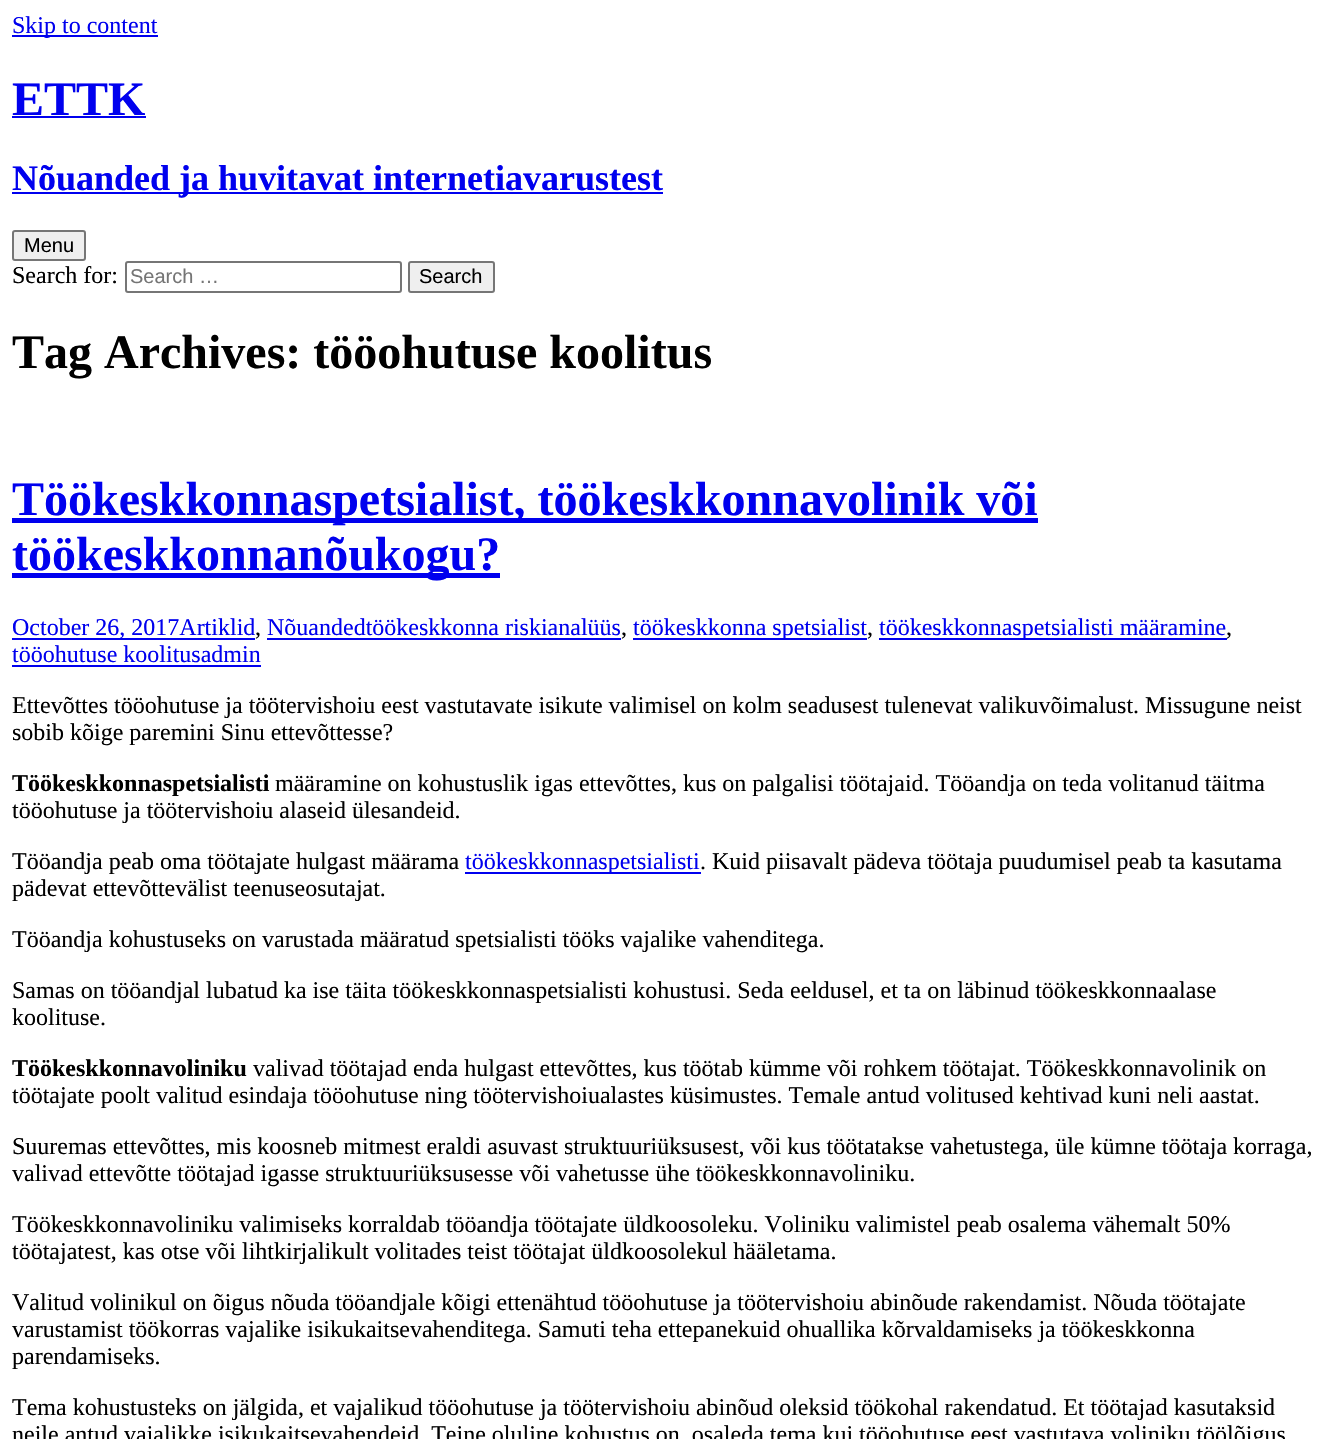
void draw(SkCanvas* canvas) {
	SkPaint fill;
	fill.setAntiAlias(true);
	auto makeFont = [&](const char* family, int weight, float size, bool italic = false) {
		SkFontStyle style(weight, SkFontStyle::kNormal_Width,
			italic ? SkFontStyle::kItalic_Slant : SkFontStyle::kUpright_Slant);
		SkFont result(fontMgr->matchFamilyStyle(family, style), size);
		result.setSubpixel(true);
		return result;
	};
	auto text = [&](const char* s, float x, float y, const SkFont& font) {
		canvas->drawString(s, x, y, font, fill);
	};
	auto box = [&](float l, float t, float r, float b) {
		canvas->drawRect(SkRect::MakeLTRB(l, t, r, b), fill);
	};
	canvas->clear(0xFFFFFFFF);
	fill.setColor(0xFF0000EE);
	box(12, 35, 158, 37);
	box(12, 116, 146, 118);
	box(12, 192, 663, 194);
	fill.setColor(0xFFEFEFEF);
	canvas->drawRoundRect(SkRect::MakeLTRB(13, 231, 85, 260), 2, 2, fill);
	fill.setStyle(SkPaint::kStroke_Style);
	fill.setStrokeWidth(2);
	fill.setColor(0xFF767676);
	canvas->drawRoundRect(SkRect::MakeLTRB(13, 231, 85, 260), 2, 2, fill);
	canvas->drawRoundRect(SkRect::MakeLTRB(126, 262, 401, 292), 2, 2, fill);
	fill.setStyle(SkPaint::kFill_Style);
	fill.setColor(0xFFEFEFEF);
	canvas->drawRoundRect(SkRect::MakeLTRB(409, 262, 494, 292), 2, 2, fill);
	fill.setStyle(SkPaint::kStroke_Style);
	fill.setColor(0xFF767676);
	canvas->drawRoundRect(SkRect::MakeLTRB(409, 262, 494, 292), 2, 2, fill);
	fill.setStyle(SkPaint::kFill_Style);
	fill.setColor(0xFF0000EE);
	box(12, 518, 1038, 523);
	box(12, 573, 500, 578);
	box(12, 638, 255, 640);
	box(267, 638, 621, 640);
	box(633, 638, 867, 640);
	box(879, 638, 1227, 640);
	box(12, 665, 261, 667);
	box(465, 872, 701, 874);
	auto font1 = makeFont("Liberation Serif", 400, 24);
	text("Skip to content", 12, 33, font1);
	auto font2 = makeFont("Liberation Serif", 700, 48);
	text("ETTK", 12, 115, font2);
	auto font3 = makeFont("Liberation Serif", 700, 36);
	text("Nõuanded ja huvitavat internetiavarustest", 12, 190, font3);
	auto font4 = makeFont("Liberation Sans", 400, 20);
	fill.setColor(0xFF000000);
	text("Menu", 24, 252, font4);
	text("Search for:", 12, 283, font1);
	fill.setColor(0xFF757575);
	text("Search …", 130, 283, font4);
	fill.setColor(0xFF000000);
	text("Search", 419, 283, font4);
	text("Tag Archives: tööohutuse koolitus", 12, 368, font2);
	fill.setColor(0xFF0000EE);
	text("Töökeskkonnaspetsialist, töökeskkonnavolinik või", 12, 515, font2);
	text("töökeskkonnanõukogu?", 12, 570, font2);
	text("October 26, 2017Artiklid", 12, 635, font1);
	fill.setColor(0xFF000000);
	text(",", 255, 635, font1);
	fill.setColor(0xFF0000EE);
	text("Nõuandedtöökeskkonna riskianalüüs", 267, 635, font1);
	fill.setColor(0xFF000000);
	text(",", 621, 635, font1);
	fill.setColor(0xFF0000EE);
	text("töökeskkonna spetsialist", 633, 635, font1);
	fill.setColor(0xFF000000);
	text(",", 867, 635, font1);
	fill.setColor(0xFF0000EE);
	text("töökeskkonnaspetsialisti määramine", 879, 635, font1);
	fill.setColor(0xFF000000);
	text(",", 1226, 635, font1);
	fill.setColor(0xFF0000EE);
	text("tööohutuse koolitusadmin", 12, 662, font1);
	fill.setColor(0xFF000000);
	text("Ettevõttes tööohutuse ja töötervishoiu eest vastutavate isikute valimisel on kolm seadusest tulenevat valikuvõimalust. Missugune neist", 12, 713, font1);
	text("sobib kõige paremini Sinu ettevõttesse?", 12, 740, font1);
	auto font5 = makeFont("Liberation Serif", 700, 24);
	text("Töökeskkonnaspetsialisti", 12, 791, font5);
	text("määramine on kohustuslik igas ettevõttes, kus on palgalisi töötajaid. Tööandja on teda volitanud täitma", 275, 791, font1);
	text("tööohutuse ja töötervishoiu alaseid ülesandeid.", 12, 818, font1);
	text("Tööandja peab oma töötajate hulgast määrama", 12, 869, font1);
	fill.setColor(0xFF0000EE);
	text("töökeskkonnaspetsialisti", 465, 869, font1);
	fill.setColor(0xFF000000);
	text(". Kuid piisavalt pädeva töötaja puudumisel peab ta kasutama", 700, 869, font1);
	text("pädevat ettevõttevälist teenuseosutajat.", 12, 896, font1);
	text("Tööandja kohustuseks on varustada määratud spetsialisti tööks vajalike vahenditega.", 12, 947, font1);
	text("Samas on tööandjal lubatud ka ise täita töökeskkonnaspetsialisti kohustusi. Seda eeldusel, et ta on läbinud töökeskkonnaalase", 12, 998, font1);
	text("koolituse.", 12, 1025, font1);
	text("Töökeskkonnavoliniku", 12, 1076, font5);
	text("valivad töötajad enda hulgast ettevõttes, kus töötab kümme või rohkem töötajat. Töökeskkonnavolinik on", 253, 1076, font1);
	text("töötajate poolt valitud esindaja tööohutuse ning töötervishoiualastes küsimustes. Temale antud volitused kehtivad kuni neli aastat.", 12, 1103, font1);
	text("Suuremas ettevõttes, mis koosneb mitmest eraldi asuvast struktuuriüksusest, või kus töötatakse vahetustega, üle kümne töötaja korraga,", 12, 1154, font1);
	text("valivad ettevõtte töötajad igasse struktuuriüksusesse või vahetusse ühe töökeskkonnavoliniku.", 12, 1181, font1);
	text("Töökeskkonnavoliniku valimiseks korraldab tööandja töötajate üldkoosoleku. Voliniku valimistel peab osalema vähemalt 50%", 12, 1232, font1);
	text("töötajatest, kas otse või lihtkirjalikult volitades teist töötajat üldkoosolekul hääletama.", 12, 1259, font1);
	text("Valitud volinikul on õigus nõuda tööandjale kõigi ettenähtud tööohutuse ja töötervishoiu abinõude rakendamist. Nõuda töötajate", 12, 1310, font1);
	text("varustamist töökorras vajalike isikukaitsevahenditega. Samuti teha ettepanekuid ohuallika kõrvaldamiseks ja töökeskkonna", 12, 1337, font1);
	text("parendamiseks.", 12, 1364, font1);
	text("Tema kohustusteks on jälgida, et vajalikud tööohutuse ja töötervishoiu abinõud oleksid töökohal rakendatud. Et töötajad kasutaksid", 12, 1415, font1);
	text("neile antud vajalikke isikukaitsevahendeid. Teine oluline kohustus on  osaleda tema kui tööohutuse eest vastutava voliniku töölõigus", 12, 1442, font1);
}
